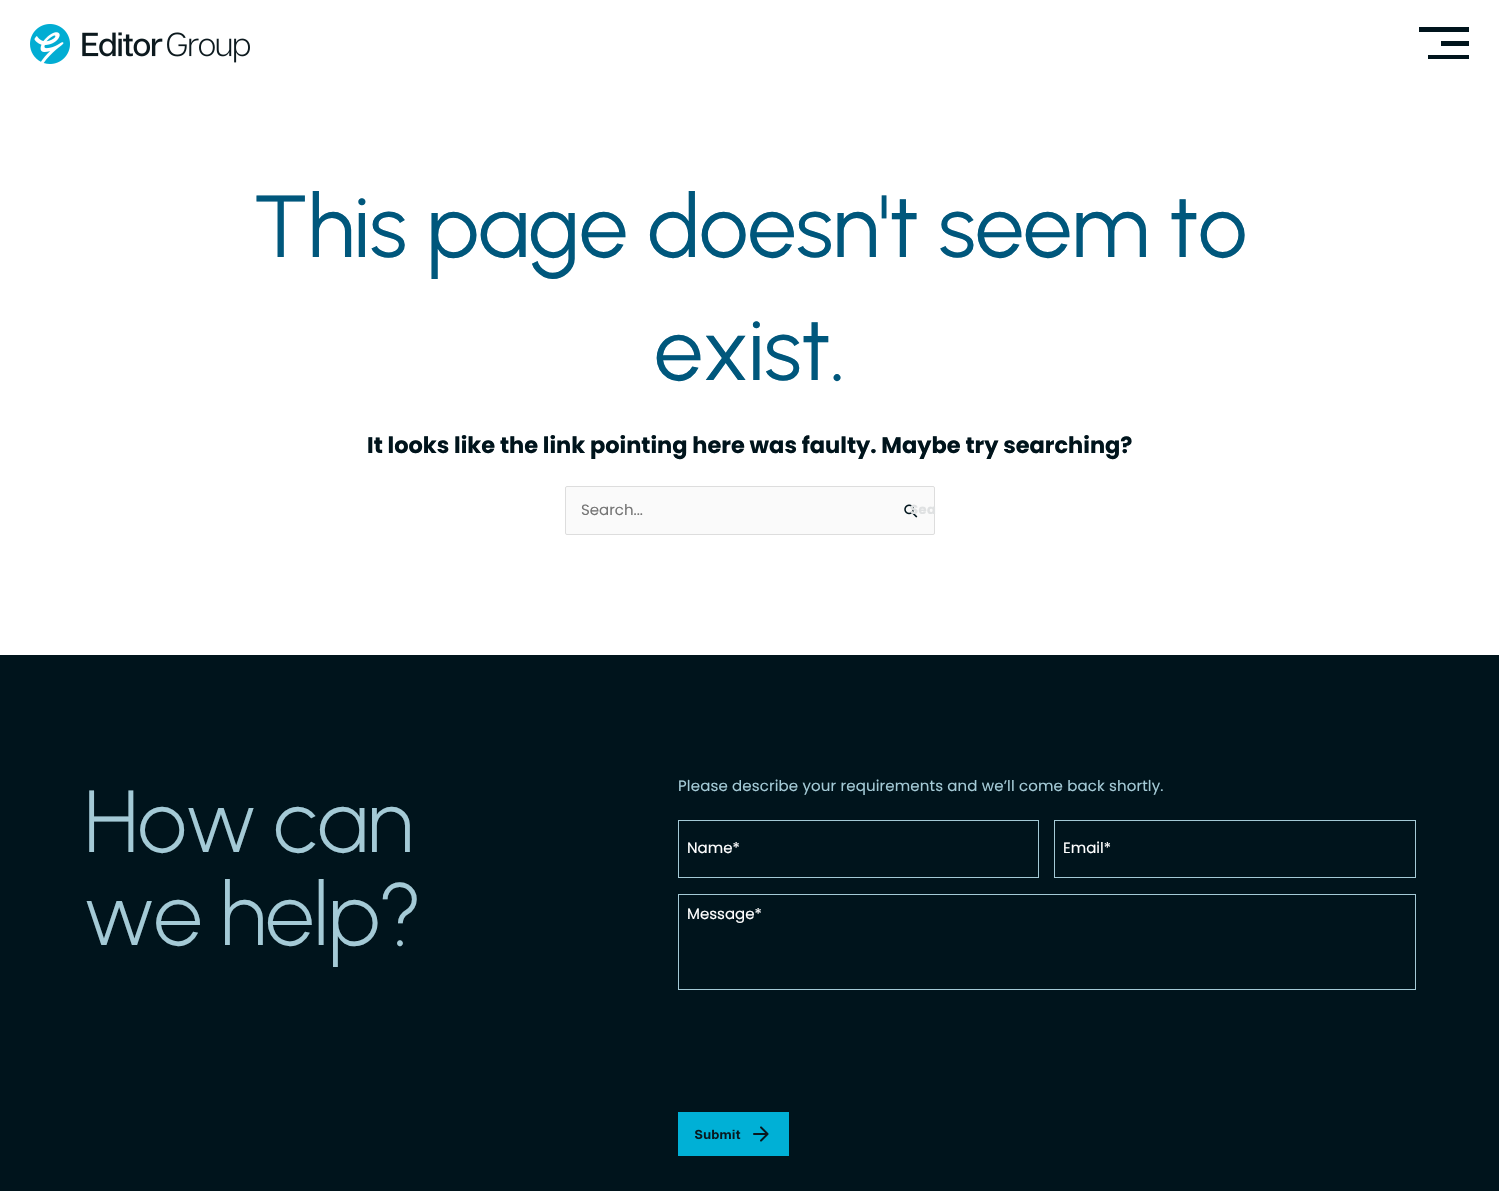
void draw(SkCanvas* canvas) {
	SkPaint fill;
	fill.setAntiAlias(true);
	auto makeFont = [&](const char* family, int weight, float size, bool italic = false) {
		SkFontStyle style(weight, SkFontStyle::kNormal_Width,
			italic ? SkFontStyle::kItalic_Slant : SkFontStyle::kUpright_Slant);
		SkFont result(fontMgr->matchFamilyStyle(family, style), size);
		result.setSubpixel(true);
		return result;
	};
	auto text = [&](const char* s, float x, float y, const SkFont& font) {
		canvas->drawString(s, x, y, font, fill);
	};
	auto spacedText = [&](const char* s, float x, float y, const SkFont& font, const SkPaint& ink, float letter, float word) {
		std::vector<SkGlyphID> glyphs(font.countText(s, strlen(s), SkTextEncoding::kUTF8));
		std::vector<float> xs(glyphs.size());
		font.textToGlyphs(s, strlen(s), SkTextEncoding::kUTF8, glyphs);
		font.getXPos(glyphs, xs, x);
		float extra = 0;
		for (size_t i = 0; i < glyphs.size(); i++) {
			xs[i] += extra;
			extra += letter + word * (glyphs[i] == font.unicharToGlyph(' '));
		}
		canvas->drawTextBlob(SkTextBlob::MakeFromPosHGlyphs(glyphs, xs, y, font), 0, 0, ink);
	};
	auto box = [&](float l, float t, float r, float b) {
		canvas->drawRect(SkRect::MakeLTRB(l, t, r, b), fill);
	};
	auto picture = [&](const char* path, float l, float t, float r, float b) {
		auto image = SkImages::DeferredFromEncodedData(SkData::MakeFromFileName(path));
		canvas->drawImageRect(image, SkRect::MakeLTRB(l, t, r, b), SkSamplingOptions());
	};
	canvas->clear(0xFFFFFFFF);
	picture("image0.png", 30, 24, 250, 64);
	fill.setColor(0xFF00141C);
	box(1419, 27, 1469, 32);
	box(1441, 41, 1469, 46);
	box(1428, 55, 1469, 59);
	fill.setColor(0xFFFAFAFA);
	canvas->drawRoundRect(SkRect::MakeLTRB(565.5f, 486.5f, 934.5f, 534.5f), 1.5f, 1.5f, fill);
	fill.setStyle(SkPaint::kStroke_Style);
	fill.setStrokeWidth(1);
	fill.setColor(0xFFDDDDDD);
	canvas->drawRoundRect(SkRect::MakeLTRB(565.5f, 486.5f, 934.5f, 534.5f), 1.5f, 1.5f, fill);
	picture("image1.png", 904, 504, 918, 518);
	fill.setStyle(SkPaint::kFill_Style);
	fill.setColor(0xFF00141C);
	box(0, 655, 1499, 1191);
	fill.setStyle(SkPaint::kStroke_Style);
	fill.setColor(0xFFA4CAD6);
	canvas->drawRect(SkRect::MakeLTRB(678.5f, 820.5f, 1038.5f, 877.5f), fill);
	canvas->drawRect(SkRect::MakeLTRB(1054.5f, 820.5f, 1415.5f, 877.5f), fill);
	canvas->drawRect(SkRect::MakeLTRB(678.5f, 894.5f, 1415.5f, 989.5f), fill);
	picture("image2.png", 678, 1112, 789, 1156);
	auto font1 = makeFont("Urbanist", 400, 88);
	fill.setStyle(SkPaint::kFill_Style);
	fill.setColor(0xFF00577C);
	spacedText("This page doesn't seem to", 253, 257, font1, fill, -1, 0);
	spacedText("exist.", 654, 380, font1, fill, -1, 0);
	auto font2 = makeFont("Poppins", 700, 22.5f);
	fill.setColor(0xFF00141C);
	text("It looks like the link pointing here was faulty. Maybe try searching?", 367, 453, font2);
	auto font3 = makeFont("Poppins", 400, 15);
	fill.setColor(0xFF757575);
	text("Search...", 581, 515, font3);
	auto font4 = makeFont("Poppins", 700, 13);
	fill.setColor(0xFFDFE1E2);
	spacedText("Sea", 910, 514, font4, fill, 0.5f, 0);
	auto font5 = makeFont("Urbanist", 300, 88);
	fill.setColor(0xFFA4CAD6);
	spacedText("How can", 84, 852, font5, fill, -1, -2);
	spacedText("we help?", 84, 945, font5, fill, -1, -2);
	spacedText("Please describe your requirements and we’ll come back shortly.", 678, 791, font3, fill, 0.15f, 0);
	fill.setColor(0xFFFFFFFF);
	text("Name*", 687, 853, font3);
	text("Email*", 1063, 853, font3);
	text("Message*", 687, 919, font3);
}
